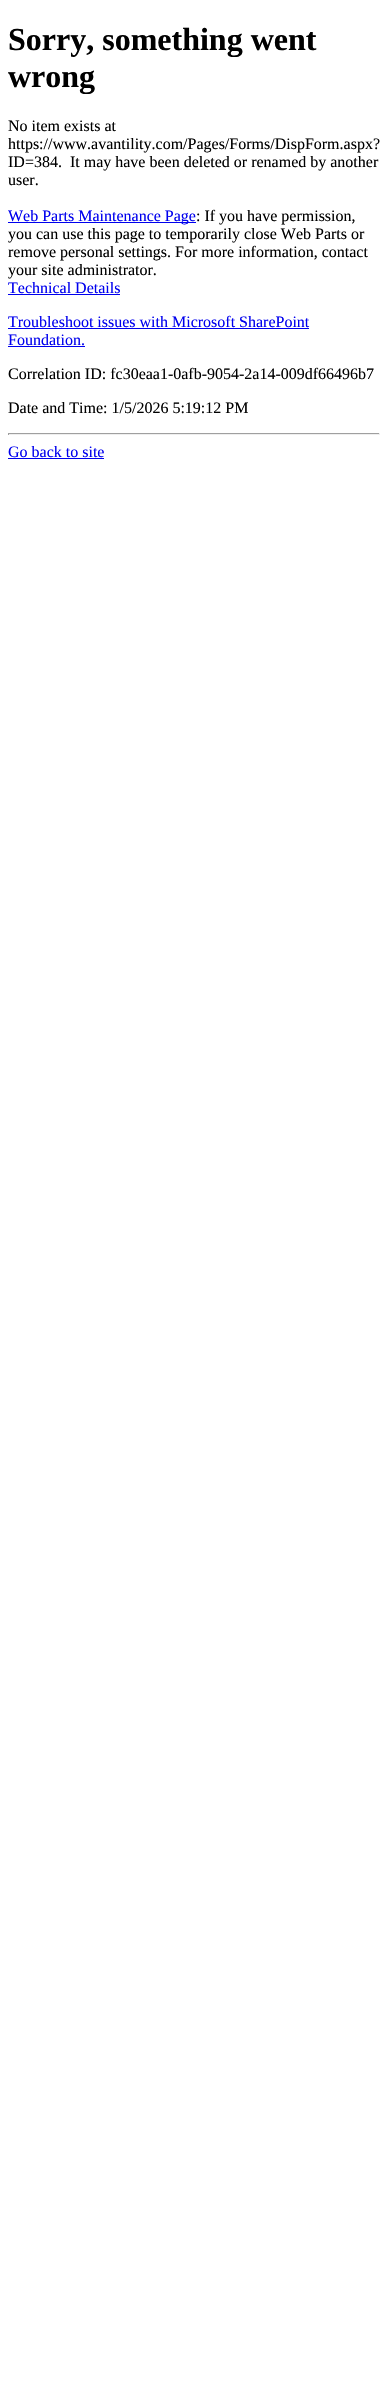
void draw(SkCanvas* canvas) {
	SkPaint fill;
	fill.setAntiAlias(true);
	auto makeFont = [&](const char* family, int weight, float size, bool italic = false) {
		SkFontStyle style(weight, SkFontStyle::kNormal_Width,
			italic ? SkFontStyle::kItalic_Slant : SkFontStyle::kUpright_Slant);
		SkFont result(fontMgr->matchFamilyStyle(family, style), size);
		result.setSubpixel(true);
		return result;
	};
	auto text = [&](const char* s, float x, float y, const SkFont& font) {
		canvas->drawString(s, x, y, font, fill);
	};
	auto box = [&](float l, float t, float r, float b) {
		canvas->drawRect(SkRect::MakeLTRB(l, t, r, b), fill);
	};
	canvas->clear(0xFFFFFFFF);
	fill.setColor(0xFF0000EE);
	box(8, 222, 196, 223);
	box(8, 294, 120, 295);
	box(8, 328, 309, 329);
	box(8, 346, 85, 347);
	fill.setColor(0xFF9F9F9F);
	box(8, 433, 380, 434);
	fill.setColor(0xFFEEEEEE);
	box(379, 433, 380, 435);
	box(8, 434, 380, 435);
	fill.setColor(0xFF9F9F9F);
	box(8, 433, 9, 435);
	fill.setColor(0xFF0000EE);
	box(8, 458, 104, 459);
	auto font1 = makeFont("Liberation Serif", 700, 32);
	fill.setColor(0xFF000000);
	text("Sorry, something went", 8, 50, font1);
	text("wrong", 8, 87, font1);
	auto font2 = makeFont("Liberation Serif", 400, 16);
	text("No item exists at", 8, 131, font2);
	text("https://www.avantility.com/Pages/Forms/DispForm.aspx?", 8, 149, font2);
	text("ID=384.  It may have been deleted or renamed by another", 8, 167, font2);
	text("user.", 8, 185, font2);
	fill.setColor(0xFF0000EE);
	text("Web Parts Maintenance Page", 8, 221, font2);
	fill.setColor(0xFF000000);
	text(": If you have permission,", 196, 221, font2);
	text("you can use this page to temporarily close Web Parts or", 8, 239, font2);
	text("remove personal settings. For more information, contact", 8, 257, font2);
	text("your site administrator.", 8, 275, font2);
	fill.setColor(0xFF0000EE);
	text("Technical Details", 8, 293, font2);
	text("Troubleshoot issues with Microsoft SharePoint", 8, 327, font2);
	text("Foundation.", 8, 345, font2);
	fill.setColor(0xFF000000);
	text("Correlation ID: fc30eaa1-0afb-9054-2a14-009df66496b7", 8, 379, font2);
	text("Date and Time: 1/5/2026 5:19:12 PM", 8, 413, font2);
	fill.setColor(0xFF0000EE);
	text("Go back to site", 8, 457, font2);
}
